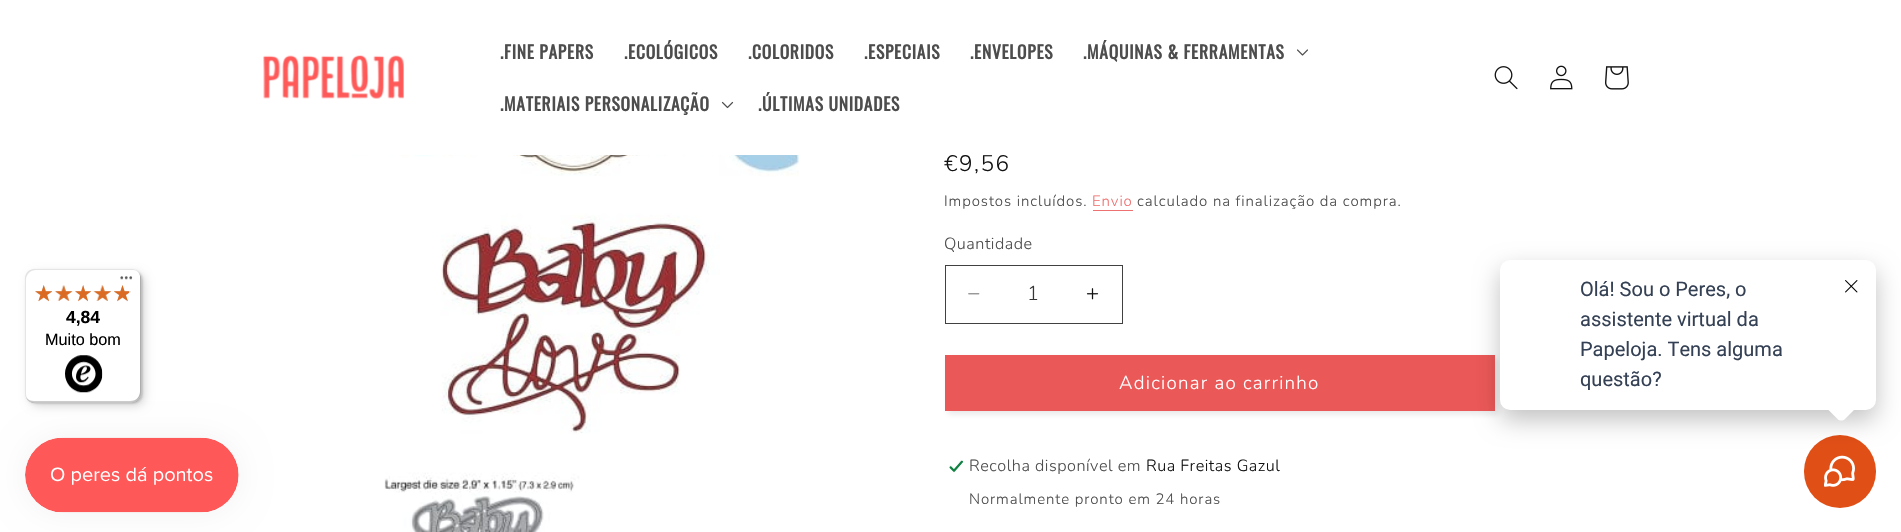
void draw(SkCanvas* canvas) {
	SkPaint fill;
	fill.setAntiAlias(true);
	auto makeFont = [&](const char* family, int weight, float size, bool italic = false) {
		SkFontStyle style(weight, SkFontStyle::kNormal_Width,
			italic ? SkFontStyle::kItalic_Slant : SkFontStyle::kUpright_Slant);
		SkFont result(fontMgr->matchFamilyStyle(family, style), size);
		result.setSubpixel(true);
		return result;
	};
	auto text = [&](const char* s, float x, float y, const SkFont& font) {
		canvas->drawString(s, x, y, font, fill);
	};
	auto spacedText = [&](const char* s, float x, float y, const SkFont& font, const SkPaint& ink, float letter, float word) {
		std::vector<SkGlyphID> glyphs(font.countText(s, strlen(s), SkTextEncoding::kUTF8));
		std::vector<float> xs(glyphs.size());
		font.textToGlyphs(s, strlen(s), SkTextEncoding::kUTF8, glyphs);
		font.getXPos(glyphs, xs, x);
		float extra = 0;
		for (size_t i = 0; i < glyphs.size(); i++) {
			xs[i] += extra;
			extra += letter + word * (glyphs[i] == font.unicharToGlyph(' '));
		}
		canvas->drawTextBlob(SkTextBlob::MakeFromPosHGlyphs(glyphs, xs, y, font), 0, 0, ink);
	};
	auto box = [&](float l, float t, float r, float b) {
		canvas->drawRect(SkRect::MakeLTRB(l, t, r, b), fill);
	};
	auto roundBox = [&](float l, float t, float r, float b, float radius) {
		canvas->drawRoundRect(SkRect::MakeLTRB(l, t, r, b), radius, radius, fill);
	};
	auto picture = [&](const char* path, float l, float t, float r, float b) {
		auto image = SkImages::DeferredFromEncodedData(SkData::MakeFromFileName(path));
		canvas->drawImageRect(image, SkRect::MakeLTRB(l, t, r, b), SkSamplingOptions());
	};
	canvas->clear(0xFFFFFFFF);
	picture("image0.png", 263, 55, 404, 99);
	picture("image1.png", 1297, 49, 1308, 56);
	picture("image2.png", 721, 101, 734, 109);
	picture("image3.png", 1494, 66, 1518, 90);
	picture("image4.png", 1550, 65, 1573, 90);
	picture("image5.png", 1605, 66, 1629, 90);
	fill.setColor(0x26000000);
	fill.setMaskFilter(SkMaskFilter::MakeBlur(kNormal_SkBlurStyle, 5));
	canvas->drawRoundRect(SkRect::MakeLTRB(29, 273, 145, 406), 10, 10, fill);
	fill.setMaskFilter(nullptr);
	fill.setMaskFilter(SkMaskFilter::MakeBlur(kNormal_SkBlurStyle, 1));
	canvas->drawRoundRect(SkRect::MakeLTRB(26, 270, 143, 404), 10, 10, fill);
	fill.setMaskFilter(nullptr);
	fill.setColor(0x0D000000);
	fill.setMaskFilter(SkMaskFilter::MakeBlur(kNormal_SkBlurStyle, 15.5f));
	canvas->drawRoundRect(SkRect::MakeLTRB(25, 438, 239, 513), 37.5f, 37.5f, fill);
	fill.setMaskFilter(nullptr);
	fill.setColor(0xFFFFFFFF);
	roundBox(25, 269, 141, 403, 10);
	fill.setColor(0x1A000000);
	canvas->drawPath(SkPathBuilder().moveTo(36, 270).lineTo(132, 270).cubicTo(134, 270, 136, 270, 137, 271).cubicTo(136, 270, 133, 269, 131, 269).lineTo(35, 269).cubicTo(29, 269, 25, 273, 25, 279).lineTo(25, 393).cubicTo(25, 397, 27, 400, 30, 402).cubicTo(28, 400, 26, 397, 26, 394).lineTo(26, 280).cubicTo(26, 274, 31, 270, 36, 270).close().detach(), fill);
	fill.setColor(0x33000000);
	canvas->drawPath(SkPathBuilder().moveTo(26, 397).cubicTo(28, 401, 31, 403, 35, 403).lineTo(131, 403).cubicTo(137, 403, 141, 399, 141, 393).lineTo(141, 279).cubicTo(141, 277, 140, 274, 139, 273).cubicTo(140, 274, 140, 276, 140, 278).lineTo(140, 391).cubicTo(140, 397, 136, 401, 130, 401).lineTo(34, 401).cubicTo(31, 401, 28, 400, 26, 397).close().detach(), fill);
	fill.setColor(0x33323232);
	canvas->drawPath(SkPathBuilder().moveTo(26, 398).cubicTo(28, 401, 31, 403, 35, 403).lineTo(131, 403).cubicTo(137, 403, 141, 399, 141, 393).lineTo(141, 279).cubicTo(141, 277, 140, 274, 139, 273).cubicTo(140, 274, 140, 276, 140, 278).lineTo(140, 392).cubicTo(140, 397, 136, 402, 130, 402).lineTo(34, 402).cubicTo(31, 402, 28, 400, 26, 398).close().detach(), fill);
	picture("image6.png", 120, 276, 133, 280);
	fill.setColor(0x4DFFFFFF);
	canvas->drawPath(SkPathBuilder().moveTo(26, 398).cubicTo(28, 401, 31, 403, 35, 403).lineTo(131, 403).cubicTo(137, 403, 141, 399, 141, 393).lineTo(141, 392).cubicTo(141, 397, 136, 402, 131, 402).lineTo(34, 402).cubicTo(31, 402, 28, 400, 26, 398).close().detach(), fill);
	picture("image7.png", 35, 285, 52, 302);
	picture("image8.png", 55, 285, 72, 301);
	picture("image9.png", 75, 285, 91, 302);
	picture("image10.png", 93, 285, 111, 301);
	picture("image11.png", 114, 285, 131, 302);
	picture("image12.png", 35, 285, 52, 301);
	picture("image13.png", 54, 285, 73, 301);
	picture("image14.png", 75, 285, 91, 301);
	picture("image15.png", 93, 285, 111, 301);
	picture("image16.png", 114, 285, 129, 301);
	picture("image17.png", 65, 355, 103, 393);
	picture("image18.png", 343, 155, 800, 532);
	fill.setColor(0xFFEE7171);
	box(1093, 210, 1133, 211);
	picture("image19.png", 968, 293, 980, 295);
	picture("image20.png", 1086, 288, 1099, 300);
	fill.setStyle(SkPaint::kStroke_Style);
	fill.setStrokeWidth(1);
	fill.setColor(0xFF414141);
	canvas->drawRect(SkRect::MakeLTRB(945.5f, 265.5f, 1122.5f, 323.5f), fill);
	fill.setStyle(SkPaint::kFill_Style);
	fill.setColor(0x1A121212);
	fill.setMaskFilter(SkMaskFilter::MakeBlur(kNormal_SkBlurStyle, 3));
	canvas->drawRect(SkRect::MakeLTRB(948, 358, 1498, 414), fill);
	fill.setMaskFilter(nullptr);
	fill.setColor(0xFFEB5858);
	box(945, 355, 1495, 411);
	picture("image21.png", 949, 460, 964, 473);
	fill.setColor(0xFFE04F16);
	roundBox(1804, 435, 1876, 508, 36);
	picture("image23.png", 1824, 455, 1855, 487);
	fill.setColor(0x3D000000);
	fill.setMaskFilter(SkMaskFilter::MakeBlur(kNormal_SkBlurStyle, 12.5f));
	canvas->drawRoundRect(SkRect::MakeLTRB(1500, 270, 1876, 420), 10, 10, fill);
	fill.setMaskFilter(nullptr);
	fill.setColor(0xFFFFFFFF);
	roundBox(1500, 260, 1876, 410, 10);
	canvas->drawPath(SkPathBuilder().moveTo(1845, 391).lineTo(1855.5f, 401.5f).cubicTo(1857.5f, 403.5f, 1857.5f, 406.5f, 1855.5f, 408.5f).lineTo(1845, 419).cubicTo(1843, 421, 1839.5f, 421, 1837.5f, 419).lineTo(1827, 408.5f).cubicTo(1825, 406.5f, 1825, 403.5f, 1827, 401.5f).lineTo(1837.5f, 391).cubicTo(1839.5f, 389, 1843, 389, 1845, 391).close().detach(), fill);
	picture("image22.png", 1845, 280, 1858, 293);
	picture("image24.png", 25, 437, 239, 513);
	auto font1 = makeFont("Oswald", 700, 17.5f);
	fill.setColor(0xFF4D4D4D);
	spacedText(".FINE PAPERS", 500, 59, font1, fill, 0.75f, 0);
	spacedText(".ECOLÓGICOS", 624, 59, font1, fill, 0.75f, 0);
	spacedText(".COLORIDOS", 748, 59, font1, fill, 0.75f, 0);
	spacedText(".ESPECIAIS", 864, 59, font1, fill, 0.75f, 0);
	spacedText(".ENVELOPES", 970, 59, font1, fill, 0.75f, 0);
	spacedText(".MÁQUINAS & FERRAMENTAS", 1083, 59, font1, fill, 0.75f, 0);
	spacedText(".MATERIAIS PERSONALIZAÇÃO", 500, 111, font1, fill, 0.75f, 0);
	spacedText(".ÚLTIMAS UNIDADES", 758, 111, font1, fill, 0.75f, 0);
	auto font2 = makeFont("Liberation Sans", 700, 17.5f);
	fill.setColor(0xFF000000);
	text("4,84", 66, 323, font2);
	auto font3 = makeFont("Liberation Sans", 400, 16.25f);
	text("Muito bom", 45, 345, font3);
	auto font4 = makeFont("Nunito", 300, 22.5f);
	fill.setColor(0xFF121212);
	spacedText("€9,56", 944, 171, font4, fill, 1.5f, 0);
	fill.setColor(0xFFFFFFFF);
	box(953, 154, 1005, 155);
	auto font5 = makeFont("Nunito", 300, 15);
	fill.setColor(0xFF4D4D4D);
	spacedText("Impostos incluídos.", 944, 206, font5, fill, 0.9f, 0);
	fill.setColor(0xFFEE7171);
	spacedText("Envio", 1092, 206, font5, fill, 0.9f, 0);
	fill.setColor(0xFF4D4D4D);
	spacedText("calculado na finalização da compra.", 1137, 206, font5, fill, 0.9f, 0);
	auto font6 = makeFont("Nunito", 300, 16.25f);
	spacedText("Quantidade", 944, 249, font6, fill, 0.5f, 0);
	auto font7 = makeFont("Nunito", 300, 20);
	fill.setColor(0xFF363636);
	text("1", 1027, 300, font7);
	auto font8 = makeFont("Nunito", 300, 18.75f);
	fill.setColor(0xFFFFFFFF);
	spacedText("Adicionar ao carrinho", 1119, 389, font8, fill, 1.25f, 0);
	fill.setColor(0xFF4D4D4D);
	spacedText("Recolha disponível em", 969, 471, font6, fill, 0.5f, 0);
	fill.setColor(0xFF121212);
	spacedText("Rua Freitas Gazul", 1146, 471, font6, fill, 0.5f, 0);
	fill.setColor(0xFF4D4D4D);
	spacedText("Normalmente pronto em 24 horas", 969, 504, font5, fill, 0.9f, 0);
	auto font9 = makeFont("Roboto", 400, 20);
	fill.setColor(0xFF344054);
	text("Olá! Sou o Peres, o", 1580, 296, font9);
	text("assistente virtual da", 1580, 326, font9);
	text("Papeloja. Tens alguma", 1580, 356, font9);
	text("questão?", 1580, 386, font9);
}
